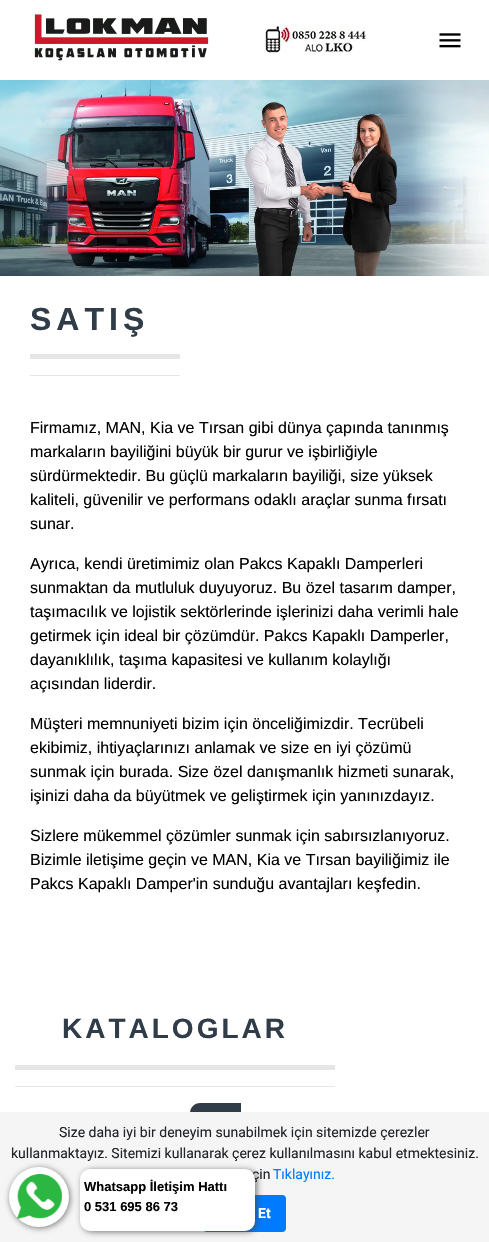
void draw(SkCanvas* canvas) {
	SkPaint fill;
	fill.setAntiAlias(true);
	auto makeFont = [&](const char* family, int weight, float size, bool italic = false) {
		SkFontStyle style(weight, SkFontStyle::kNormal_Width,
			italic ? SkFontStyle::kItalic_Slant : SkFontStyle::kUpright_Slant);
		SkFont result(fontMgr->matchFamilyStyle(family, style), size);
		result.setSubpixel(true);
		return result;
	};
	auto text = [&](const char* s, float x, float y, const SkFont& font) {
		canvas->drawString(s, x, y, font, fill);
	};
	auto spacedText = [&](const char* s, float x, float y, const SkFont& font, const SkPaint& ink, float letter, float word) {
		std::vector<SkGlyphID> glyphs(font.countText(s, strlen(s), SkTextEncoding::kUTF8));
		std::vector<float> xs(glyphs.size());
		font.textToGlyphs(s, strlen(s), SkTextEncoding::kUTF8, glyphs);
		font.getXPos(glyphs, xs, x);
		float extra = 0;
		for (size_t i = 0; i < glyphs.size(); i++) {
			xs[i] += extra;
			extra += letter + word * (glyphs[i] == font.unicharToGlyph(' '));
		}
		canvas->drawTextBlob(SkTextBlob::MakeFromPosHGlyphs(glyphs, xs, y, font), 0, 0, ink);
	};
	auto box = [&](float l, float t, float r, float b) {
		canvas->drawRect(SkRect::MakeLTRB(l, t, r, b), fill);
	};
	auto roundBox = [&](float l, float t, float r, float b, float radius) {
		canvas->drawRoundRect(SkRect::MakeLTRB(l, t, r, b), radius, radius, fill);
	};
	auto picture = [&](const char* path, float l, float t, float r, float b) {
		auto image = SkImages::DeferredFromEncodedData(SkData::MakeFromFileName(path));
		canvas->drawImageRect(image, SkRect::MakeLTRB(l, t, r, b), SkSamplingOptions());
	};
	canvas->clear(0xFFFFFFFF);
	picture("image0.png", 34, 14, 209, 61);
	picture("image1.png", 264, 25, 368, 53);
	picture("image2.png", 439, 33, 461, 48);
	picture("image3.png", 0, 80, 489, 276);
	fill.setColor(0xFFE6E6E6);
	box(30, 354, 180, 359);
	box(30, 375, 180, 376);
	box(15, 1065, 335, 1070);
	box(15, 1086, 335, 1087);
	fill.setColor(0xFF303C48);
	canvas->drawPath(SkPathBuilder().moveTo(200, 1103).lineTo(241, 1103).lineTo(241, 1118).cubicTo(241, 1123.5f, 236.5f, 1128, 231, 1128).lineTo(190, 1128).lineTo(190, 1113).cubicTo(190, 1107.5f, 194.5f, 1103, 200, 1103).close().detach(), fill);
	fill.setColor(0xFFF5F5F5);
	box(0, 1112, 489, 1242);
	fill.setColor(0xFF007BFF);
	roundBox(203, 1195, 286, 1232, 4);
	fill.setColor(0xB5444444);
	fill.setMaskFilter(SkMaskFilter::MakeBlur(kNormal_SkBlurStyle, 3));
	canvas->drawRoundRect(SkRect::MakeLTRB(10, 1168, 70, 1228), 30, 30, fill);
	fill.setMaskFilter(nullptr);
	fill.setColor(0xFFFFFFFF);
	canvas->drawCircle(39, 1197, 30, fill);
	picture("image4.png", 16, 1174, 62, 1219);
	fill.setColor(0xB5444444);
	fill.setMaskFilter(SkMaskFilter::MakeBlur(kNormal_SkBlurStyle, 3));
	canvas->drawRoundRect(SkRect::MakeLTRB(82, 1170, 257, 1232), 10, 10, fill);
	fill.setMaskFilter(nullptr);
	auto font1 = makeFont("Liberation Sans", 700, 32);
	fill.setColor(0xFF303C48);
	spacedText("SATIŞ", 30, 330, font1, fill, 5, 0);
	auto font2 = makeFont("Liberation Sans", 400, 16);
	fill.setColor(0xFF000000);
	text("Firmamız, MAN, Kia ve Tırsan gibi dünya çapında tanınmış", 30, 433, font2);
	text("markaların bayiliğini büyük bir gurur ve işbirliğiyle", 30, 457, font2);
	text("sürdürmektedir. Bu güçlü markaların bayiliği, size yüksek", 30, 481, font2);
	text("kaliteli, güvenilir ve performans odaklı araçlar sunma fırsatı", 30, 505, font2);
	text("sunar.", 30, 529, font2);
	text("Ayrıca, kendi üretimimiz olan Pakcs Kapaklı Damperleri", 30, 569, font2);
	text("sunmaktan da mutluluk duyuyoruz. Bu özel tasarım damper,", 30, 593, font2);
	text("taşımacılık ve lojistik sektörlerinde işlerinizi daha verimli hale", 30, 617, font2);
	text("getirmek için ideal bir çözümdür. Pakcs Kapaklı Damperler,", 30, 641, font2);
	text("dayanıklılık, taşıma kapasitesi ve kullanım kolaylığı", 30, 665, font2);
	text("açısından liderdir.", 30, 689, font2);
	text("Müşteri memnuniyeti bizim için önceliğimizdir. Tecrübeli", 30, 729, font2);
	text("ekibimiz, ihtiyaçlarınızı anlamak ve size en iyi çözümü", 30, 753, font2);
	text("sunmak için burada. Size özel danışmanlık hizmeti sunarak,", 30, 777, font2);
	text("işinizi daha da büyütmek ve geliştirmek için yanınızdayız.", 30, 801, font2);
	text("Sizlere mükemmel çözümler sunmak için sabırsızlanıyoruz.", 30, 841, font2);
	text("Bizimle iletişime geçin ve MAN, Kia ve Tırsan bayiliğimiz ile", 30, 865, font2);
	text("Pakcs Kapaklı Damper'in sunduğu avantajları keşfedin.", 30, 889, font2);
	auto font3 = makeFont("Liberation Sans", 700, 28);
	fill.setColor(0xFF303C48);
	spacedText("KATALOGLAR", 62, 1038, font3, fill, 3, 0);
	auto font4 = makeFont("Roboto", 400, 14);
	fill.setColor(0xFF212529);
	text("Size daha iyi bir deneyim sunabilmek için sitemizde çerezler", 59, 1137, font4);
	text("kullanmaktayız. Sitemizi kullanarak çerez kullanılmasını kabul etmektesiniz.", 11, 1158, font4);
	text("çin", 252, 1179, font4);
	fill.setColor(0xFF007BFF);
	text("Tıklayınız.", 273, 1179, font4);
	auto font5 = makeFont("Roboto", 700, 14);
	fill.setColor(0xFFFFFFFF);
	text("Et", 258, 1218, font5);
	roundBox(80, 1169, 255, 1231, 10);
	auto font6 = makeFont("Liberation Sans", 700, 13);
	fill.setColor(0xFF000000);
	text("Whatsapp İletişim Hattı", 84, 1191, font6);
	text("0 531 695 86 73", 84, 1211, font6);
}
